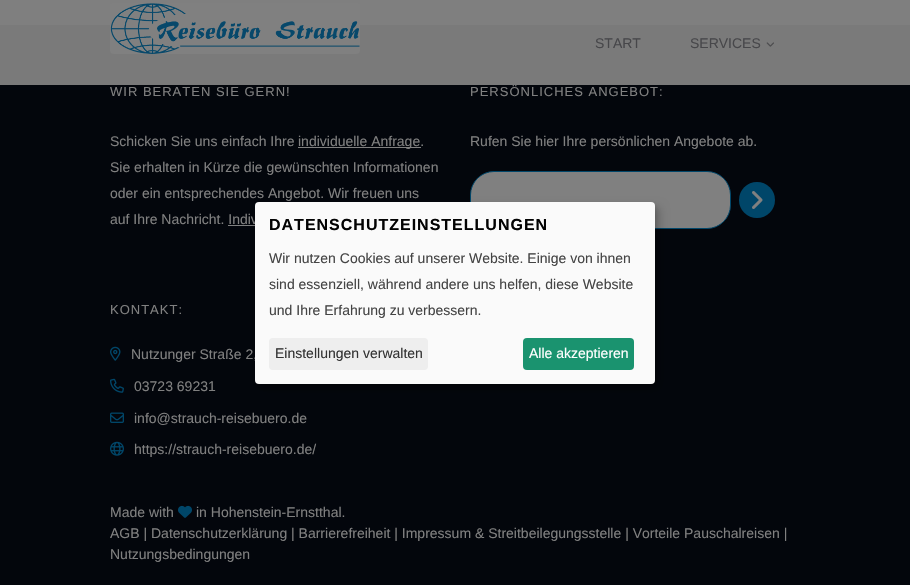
void draw(SkCanvas* canvas) {
	SkPaint fill;
	fill.setAntiAlias(true);
	auto makeFont = [&](const char* family, int weight, float size, bool italic = false) {
		SkFontStyle style(weight, SkFontStyle::kNormal_Width,
			italic ? SkFontStyle::kItalic_Slant : SkFontStyle::kUpright_Slant);
		SkFont result(fontMgr->matchFamilyStyle(family, style), size);
		result.setSubpixel(true);
		return result;
	};
	auto text = [&](const char* s, float x, float y, const SkFont& font) {
		canvas->drawString(s, x, y, font, fill);
	};
	auto spacedText = [&](const char* s, float x, float y, const SkFont& font, const SkPaint& ink, float letter, float word) {
		std::vector<SkGlyphID> glyphs(font.countText(s, strlen(s), SkTextEncoding::kUTF8));
		std::vector<float> xs(glyphs.size());
		font.textToGlyphs(s, strlen(s), SkTextEncoding::kUTF8, glyphs);
		font.getXPos(glyphs, xs, x);
		float extra = 0;
		for (size_t i = 0; i < glyphs.size(); i++) {
			xs[i] += extra;
			extra += letter + word * (glyphs[i] == font.unicharToGlyph(' '));
		}
		canvas->drawTextBlob(SkTextBlob::MakeFromPosHGlyphs(glyphs, xs, y, font), 0, 0, ink);
	};
	auto box = [&](float l, float t, float r, float b) {
		canvas->drawRect(SkRect::MakeLTRB(l, t, r, b), fill);
	};
	auto roundBox = [&](float l, float t, float r, float b, float radius) {
		canvas->drawRoundRect(SkRect::MakeLTRB(l, t, r, b), radius, radius, fill);
	};
	auto picture = [&](const char* path, float l, float t, float r, float b) {
		auto image = SkImages::DeferredFromEncodedData(SkData::MakeFromFileName(path));
		canvas->drawImageRect(image, SkRect::MakeLTRB(l, t, r, b), SkSamplingOptions());
	};
	canvas->clear(0xFF7F7F7F);
	fill.setColor(0xFF7A7A7A);
	box(0, 25, 910, 85);
	picture("image0.png", 110, 3, 360, 54);
	picture("image1.png", 766, 42, 774, 47);
	fill.setColor(0xFF03060C);
	box(0, 85, 910, 585);
	fill.setColor(0xFF808080);
	box(298, 147, 421, 148);
	box(228, 225, 255, 226);
	canvas->drawRoundRect(SkRect::MakeLTRB(470.5f, 171.5f, 730.5f, 228.5f), 23.5f, 23.5f, fill);
	fill.setStyle(SkPaint::kStroke_Style);
	fill.setStrokeWidth(1);
	fill.setColor(0xFF004669);
	canvas->drawRoundRect(SkRect::MakeLTRB(470.5f, 171.5f, 730.5f, 228.5f), 23.5f, 23.5f, fill);
	fill.setStyle(SkPaint::kFill_Style);
	canvas->drawCircle(757, 200, 18, fill);
	picture("image2.png", 752, 191, 763, 209);
	picture("image3.png", 110, 346, 121, 361);
	picture("image4.png", 110, 378, 124, 393);
	picture("image5.png", 110, 412, 124, 423);
	picture("image6.png", 110, 441, 124, 456);
	picture("image7.png", 178, 505, 192, 518);
	fill.setColor(0x30000000);
	fill.setMaskFilter(SkMaskFilter::MakeBlur(kNormal_SkBlurStyle, 5));
	canvas->drawRoundRect(SkRect::MakeLTRB(260, 207, 660, 389), 4, 4, fill);
	fill.setMaskFilter(nullptr);
	fill.setColor(0x33000000);
	fill.setMaskFilter(SkMaskFilter::MakeBlur(kNormal_SkBlurStyle, 3));
	canvas->drawRoundRect(SkRect::MakeLTRB(255, 206, 655, 388), 4, 4, fill);
	fill.setMaskFilter(nullptr);
	auto font1 = makeFont("Liberation Sans", 400, 14);
	fill.setColor(0xFF47474A);
	text("START", 595, 48, font1);
	text("SERVICES", 690, 48, font1);
	auto font2 = makeFont("Liberation Sans", 400, 13);
	fill.setColor(0xFF808080);
	spacedText("WIR BERATEN SIE GERN!", 110, 96, font2, fill, 1, 0);
	text("Schicken Sie uns einfach Ihre", 110, 146, font1);
	text("individuelle Anfrage.", 298, 146, font1);
	text("Sie erhalten in Kürze die gewünschten Informationen", 110, 172, font1);
	text("oder ein entsprechendes Angebot. Wir freuen uns", 110, 198, font1);
	text("auf Ihre Nachricht. Indiv", 110, 224, font1);
	spacedText("PERSÖNLICHES ANGEBOT:", 470, 96, font2, fill, 1, 0);
	text("Rufen Sie hier Ihre persönlichen Angebote ab.", 470, 146, font1);
	spacedText("KONTAKT:", 110, 314, font2, fill, 1, 0);
	text("Nutzunger Straße 2,", 131, 359, font1);
	text("03723 69231", 134, 391, font1);
	text("info@strauch-reisebuero.de", 134, 423, font1);
	text("https://strauch-reisebuero.de/", 134, 454, font1);
	text("Made with", 110, 517, font1);
	text("in Hohenstein-Ernstthal.", 196, 517, font1);
	text("AGB | Datenschutzerklärung | Barrierefreiheit | Impressum & Streitbeilegungsstelle | Vorteile Pauschalreisen |", 110, 538, font1);
	text("Nutzungsbedingungen", 110, 559, font1);
	fill.setColor(0xFFFAFAFA);
	roundBox(255, 202, 655, 384, 4);
	auto font3 = makeFont("Liberation Sans", 700, 16);
	fill.setColor(0xFF030303);
	spacedText("DATENSCHUTZEINSTELLUNGEN", 269, 230, font3, fill, 1, 0);
	fill.setColor(0xFF444444);
	text("Wir nutzen Cookies auf unserer Website. Einige von ihnen", 269, 263, font1);
	text("sind essenziell, während andere uns helfen, diese Website", 269, 289, font1);
	text("und Ihre Erfahrung zu verbessern.", 269, 315, font1);
	fill.setColor(0xFFEEEEEE);
	roundBox(269, 338, 428, 370, 4);
	fill.setColor(0xFF333333);
	text("Einstellungen verwalten", 275, 358, font1);
	fill.setColor(0xFF1A936F);
	roundBox(523, 338, 634, 370, 4);
	fill.setColor(0xFFFFFFFF);
	text("Alle akzeptieren", 529, 358, font1);
}
